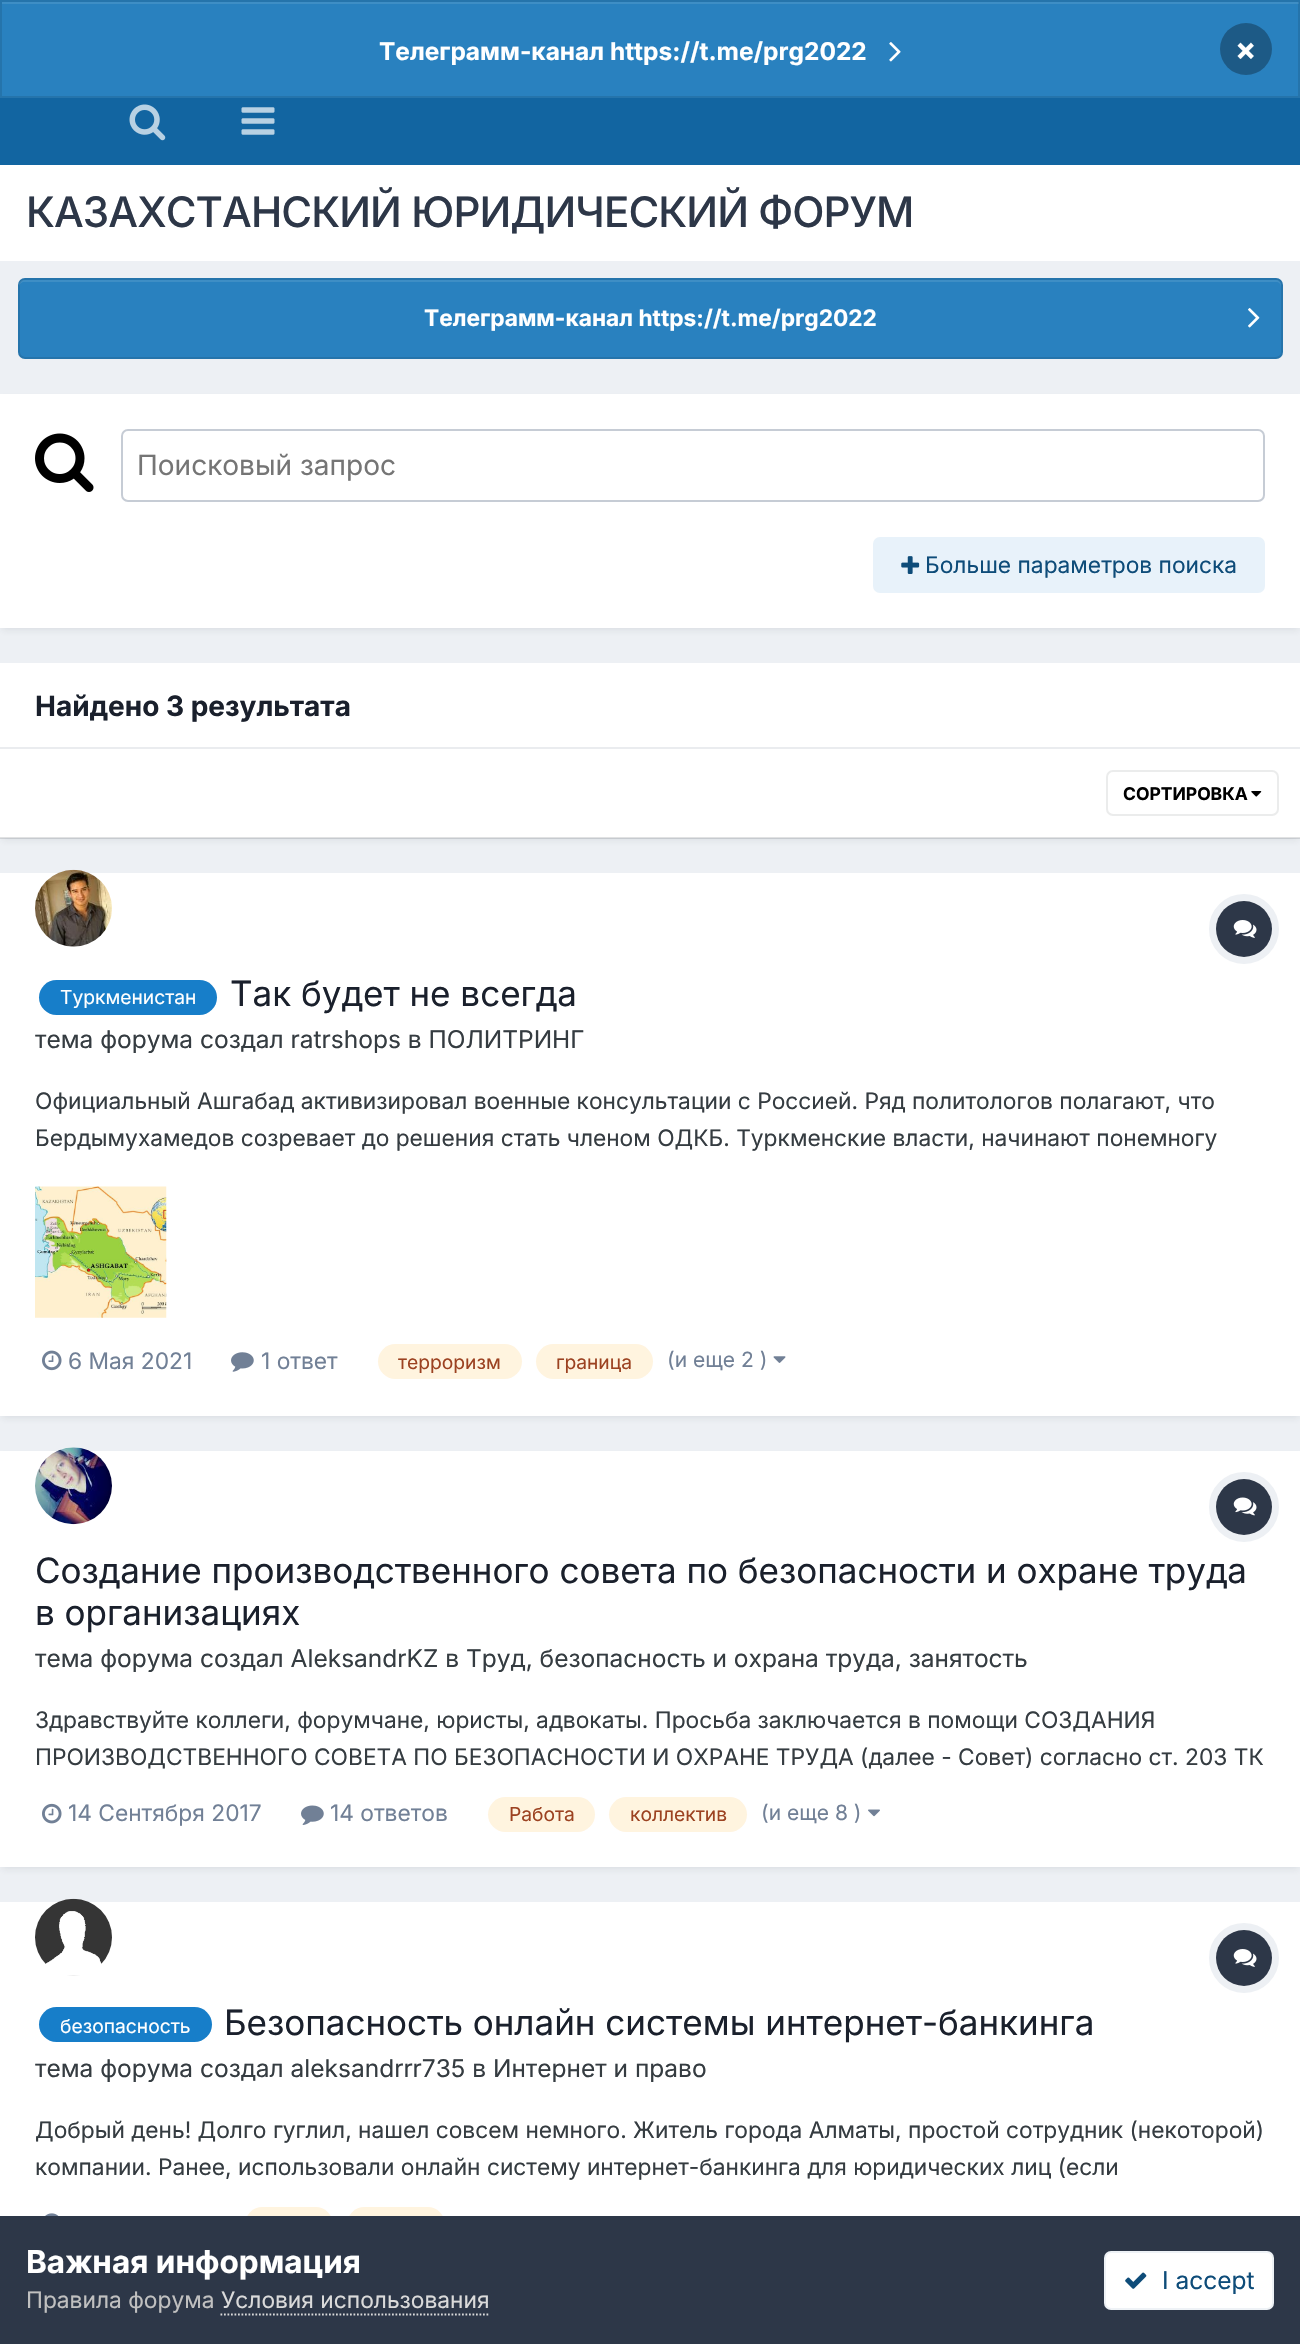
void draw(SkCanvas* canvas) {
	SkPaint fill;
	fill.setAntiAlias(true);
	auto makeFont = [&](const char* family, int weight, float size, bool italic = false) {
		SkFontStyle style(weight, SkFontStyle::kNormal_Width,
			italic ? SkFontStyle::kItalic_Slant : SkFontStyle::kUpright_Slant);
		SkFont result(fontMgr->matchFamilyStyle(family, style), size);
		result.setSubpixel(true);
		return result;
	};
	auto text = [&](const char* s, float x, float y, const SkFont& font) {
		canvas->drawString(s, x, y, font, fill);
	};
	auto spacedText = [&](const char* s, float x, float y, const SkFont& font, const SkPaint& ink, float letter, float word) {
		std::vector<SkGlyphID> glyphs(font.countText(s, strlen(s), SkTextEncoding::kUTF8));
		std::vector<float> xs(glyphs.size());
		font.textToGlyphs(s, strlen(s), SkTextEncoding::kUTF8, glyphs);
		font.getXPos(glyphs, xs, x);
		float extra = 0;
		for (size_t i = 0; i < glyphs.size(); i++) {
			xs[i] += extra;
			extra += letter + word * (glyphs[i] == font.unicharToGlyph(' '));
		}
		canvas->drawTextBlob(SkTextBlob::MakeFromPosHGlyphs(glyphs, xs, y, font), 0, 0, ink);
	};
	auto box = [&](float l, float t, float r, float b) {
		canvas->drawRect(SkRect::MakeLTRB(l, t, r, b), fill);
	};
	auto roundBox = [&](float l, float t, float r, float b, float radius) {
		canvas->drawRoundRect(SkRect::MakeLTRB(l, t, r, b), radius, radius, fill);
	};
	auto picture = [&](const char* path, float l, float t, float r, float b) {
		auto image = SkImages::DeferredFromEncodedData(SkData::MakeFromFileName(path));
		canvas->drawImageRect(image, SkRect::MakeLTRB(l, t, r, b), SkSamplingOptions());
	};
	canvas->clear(0xFFEDF0F4);
	fill.setColor(0xFF2981BF);
	box(0, 0, 1300, 98);
	fill.setColor(0xFF3E8EC5);
	box(2, 2, 1299, 4);
	fill.setStyle(SkPaint::kStroke_Style);
	fill.setStrokeWidth(2);
	fill.setColor(0x1A000000);
	canvas->drawRect(SkRect::MakeLTRB(1, 1, 1299, 97), fill);
	picture("image0.png", 889, 42, 901, 62);
	fill.setStyle(SkPaint::kFill_Style);
	fill.setColor(0xFF1D5A86);
	canvas->drawCircle(1246, 49, 26, fill);
	fill.setColor(0xFF1265A1);
	box(0, 98, 1300, 165);
	picture("image1.png", 129, 104, 166, 141);
	picture("image2.png", 241, 107, 275, 135);
	fill.setColor(0xFFFFFFFF);
	box(0, 165, 1300, 261);
	fill.setColor(0xFF2981BF);
	roundBox(18, 278, 1283, 359, 7);
	fill.setColor(0xFF3E8EC5);
	canvas->drawPath(SkPathBuilder().moveTo(24, 282).lineTo(1276, 282).cubicTo(1279, 282, 1281, 284, 1281, 287).lineTo(1281, 285).cubicTo(1281, 282, 1279, 280, 1276, 280).lineTo(24, 280).cubicTo(21, 280, 19, 282, 19, 285).lineTo(19, 287).cubicTo(19, 284, 22, 282, 24, 282).close().detach(), fill);
	fill.setStyle(SkPaint::kStroke_Style);
	fill.setColor(0x1A000000);
	canvas->drawRoundRect(SkRect::MakeLTRB(19, 279, 1282, 358), 6, 6, fill);
	picture("image3.png", 1248, 308, 1260, 328);
	fill.setStyle(SkPaint::kFill_Style);
	fill.setColor(0x1A2D3748);
	fill.setMaskFilter(SkMaskFilter::MakeBlur(kNormal_SkBlurStyle, 3.5f));
	canvas->drawRect(SkRect::MakeLTRB(2, 399, 1299, 630), fill);
	fill.setMaskFilter(nullptr);
	fill.setColor(0xFFFFFFFF);
	box(0, 394, 1300, 628);
	picture("image4.png", 35, 433, 94, 492);
	fill.setStyle(SkPaint::kStroke_Style);
	fill.setColor(0xFFC6CCD5);
	canvas->drawRoundRect(SkRect::MakeLTRB(122, 430, 1264, 501), 6, 6, fill);
	fill.setStyle(SkPaint::kFill_Style);
	fill.setColor(0xFFE8F2FA);
	roundBox(873, 537, 1265, 593, 7);
	picture("image5.png", 901, 556, 920, 574);
	fill.setColor(0x1A2D3748);
	fill.setMaskFilter(SkMaskFilter::MakeBlur(kNormal_SkBlurStyle, 3.5f));
	canvas->drawRect(SkRect::MakeLTRB(2, 669, 1299, 840), fill);
	fill.setMaskFilter(nullptr);
	fill.setColor(0xFFFFFFFF);
	box(0, 663, 1300, 838);
	fill.setColor(0xFFEAECEF);
	box(0, 747, 1300, 749);
	fill.setColor(0x26353C41);
	box(0, 837, 1300, 839);
	picture("image6.png", 1251, 791, 1262, 797);
	fill.setStyle(SkPaint::kStroke_Style);
	fill.setColor(0xFFEBECEC);
	canvas->drawRoundRect(SkRect::MakeLTRB(1107, 771, 1278, 815), 6, 6, fill);
	fill.setStyle(SkPaint::kFill_Style);
	fill.setColor(0x1A2D3748);
	fill.setMaskFilter(SkMaskFilter::MakeBlur(kNormal_SkBlurStyle, 3.5f));
	canvas->drawRect(SkRect::MakeLTRB(2, 879, 1299, 1418), fill);
	fill.setMaskFilter(nullptr);
	fill.setColor(0xFFFFFFFF);
	box(0, 873, 1300, 1416);
	canvas->drawCircle(73.5f, 908.5f, 38.5f, fill);
	picture("image7.png", 35, 869, 112, 947);
	fill.setStyle(SkPaint::kStroke_Style);
	fill.setStrokeWidth(7);
	fill.setColor(0xFFEDF0F4);
	canvas->drawCircle(1244, 929, 31.5f, fill);
	fill.setStyle(SkPaint::kFill_Style);
	fill.setColor(0xFF2D3748);
	canvas->drawCircle(1244, 929, 28, fill);
	picture("image8.png", 1233, 920, 1257, 938);
	fill.setColor(0xFF177EC9);
	roundBox(39, 980, 217, 1015, 17.5f);
	picture("image9.png", 35, 1186, 167, 1318);
	picture("image10.png", 42, 1350, 62, 1371);
	picture("image11.png", 231, 1352, 254, 1372);
	fill.setColor(0xFFFFF4DF);
	roundBox(378, 1344, 522, 1379, 17.5f);
	roundBox(536, 1344, 653, 1379, 17.5f);
	picture("image12.png", 773, 1356, 786, 1363);
	fill.setColor(0x1A2D3748);
	fill.setMaskFilter(SkMaskFilter::MakeBlur(kNormal_SkBlurStyle, 3.5f));
	canvas->drawRect(SkRect::MakeLTRB(2, 1456, 1299, 1869), fill);
	fill.setMaskFilter(nullptr);
	fill.setColor(0xFFFFFFFF);
	box(0, 1451, 1300, 1867);
	canvas->drawCircle(73.5f, 1485.5f, 38.5f, fill);
	picture("image13.png", 35, 1447, 112, 1525);
	fill.setStyle(SkPaint::kStroke_Style);
	fill.setColor(0xFFEDF0F4);
	canvas->drawCircle(1244, 1507, 31.5f, fill);
	fill.setStyle(SkPaint::kFill_Style);
	fill.setColor(0xFF2D3748);
	canvas->drawCircle(1244, 1507, 28, fill);
	picture("image14.png", 1233, 1497, 1257, 1516);
	picture("image15.png", 42, 1803, 62, 1824);
	picture("image16.png", 301, 1805, 324, 1825);
	fill.setColor(0xFFFFF4DF);
	roundBox(488, 1797, 595, 1832, 17.5f);
	roundBox(609, 1797, 747, 1832, 17.5f);
	picture("image17.png", 868, 1809, 880, 1817);
	fill.setColor(0xFFFFFFFF);
	box(0, 1902, 1300, 2216);
	canvas->drawCircle(73.5f, 1937.5f, 38.5f, fill);
	picture("image18.png", 35, 1898, 112, 1976);
	fill.setStyle(SkPaint::kStroke_Style);
	fill.setColor(0xFFEDF0F4);
	canvas->drawCircle(1244, 1958, 31.5f, fill);
	fill.setStyle(SkPaint::kFill_Style);
	fill.setColor(0xFF2D3748);
	canvas->drawCircle(1244, 1958, 28, fill);
	picture("image19.png", 1233, 1949, 1257, 1967);
	fill.setColor(0xFF177EC9);
	roundBox(39, 2007, 212, 2042, 17.5f);
	picture("image20.png", 45, 2213, 59, 2216);
	fill.setColor(0xFFFFF4DF);
	roundBox(245, 2207, 333, 2242, 17.5f);
	roundBox(347, 2207, 445, 2242, 17.5f);
	fill.setColor(0xFF2D3748);
	box(0, 2216, 1300, 2344);
	fill.setStyle(SkPaint::kStroke_Style);
	fill.setStrokeWidth(1.8f);
	fill.setColor(0xFFDADADA);
	fill.setPathEffect(SkDashPathEffect::Make({{1.75f, 1.75f}}, 0));
	canvas->drawPath(SkPathBuilder().moveTo(220.5f, 2314.5f).lineTo(490, 2314.5f).detach(), fill);
	fill.setPathEffect(nullptr);
	fill.setStyle(SkPaint::kFill_Style);
	fill.setColor(0xFFFFFFFF);
	roundBox(1104, 2251, 1274, 2310, 7);
	fill.setStyle(SkPaint::kStroke_Style);
	fill.setStrokeWidth(2);
	fill.setColor(0x120E4C79);
	canvas->drawRoundRect(SkRect::MakeLTRB(1105, 2252, 1273, 2309), 6, 6, fill);
	picture("image21.png", 1125, 2272, 1147, 2289);
	auto font1 = makeFont("Inter", 700, 24.5f);
	fill.setStyle(SkPaint::kFill_Style);
	fill.setColor(0xFFFFFFFF);
	text("Телеграмм-канал https://t.me/prg2022", 379, 60, font1);
	auto font2 = makeFont("Inter", 700, 31.5f);
	text("×", 1235, 60, font2);
	auto font3 = makeFont("Inter", 500, 42);
	fill.setColor(0xFF2D3748);
	spacedText("КАЗАХСТАНСКИЙ ЮРИДИЧЕСКИЙ ФОРУМ", 26, 227, font3, fill, -0.9f, 0);
	auto font4 = makeFont("Inter", 700, 22.75f);
	fill.setColor(0xFFFFFFFF);
	text("Телеграмм-канал https://t.me/prg2022", 424, 326, font4);
	auto font5 = makeFont("Inter", 400, 28);
	fill.setColor(0xFF757575);
	text("Поисковый запрос", 137, 475, font5);
	auto font6 = makeFont("Inter", 400, 22.75f);
	fill.setColor(0xFF0E4C79);
	text("Больше параметров поиска", 925, 573, font6);
	auto font7 = makeFont("Inter", 700, 28);
	fill.setColor(0xFF1A202C);
	text("Найдено 3 результата", 35, 716, font7);
	auto font8 = makeFont("Inter", 700, 17.5f);
	fill.setColor(0xFF000000);
	text("СОРТИРОВКА", 1123, 800, font8);
	auto font9 = makeFont("Inter", 400, 19.25f);
	fill.setColor(0xFFFFFFFF);
	text("Туркменистан", 60, 1004, font9);
	auto font10 = makeFont("Inter", 400, 35);
	fill.setColor(0xFF1A202C);
	text("Так будет не всегда", 230, 1006, font10);
	auto font11 = makeFont("Inter", 400, 24.5f);
	fill.setColor(0xFF353C41);
	text("тема форума создал ratrshops в ПОЛИТРИНГ", 35, 1048, font11);
	text("Официальный Ашгабад активизировал военные консультации с Россией. Ряд политологов полагают, что", 35, 1109, font6);
	text("Бердымухамедов созревает до решения стать членом ОДКБ. Туркменские власти, начинают понемногу", 35, 1146, font6);
	fill.setColor(0xFF718096);
	text("6 Мая 2021", 68, 1369, font6);
	text("1 ответ", 261, 1369, font6);
	fill.setColor(0xFF9C4221);
	text("терроризм", 398, 1369, font9);
	text("граница", 556, 1369, font9);
	auto font12 = makeFont("Inter", 400, 21);
	fill.setColor(0xFF718096);
	text("(и еще 2 )", 667, 1367, font12);
	fill.setColor(0xFF1A202C);
	text("Создание производственного совета по безопасности и охране труда", 35, 1583, font10);
	text("в организациях", 35, 1625, font10);
	fill.setColor(0xFF353C41);
	text("тема форума создал AleksandrKZ в Труд, безопасность и охрана труда, занятость", 35, 1667, font11);
	text("Здравствуйте коллеги, форумчане, юристы, адвокаты. Просьба заключается в помощи СОЗДАНИЯ", 35, 1728, font6);
	text("ПРОИЗВОДСТВЕННОГО СОВЕТА ПО БЕЗОПАСНОСТИ И ОХРАНЕ ТРУДА (далее - Совет) согласно ст. 203 ТК", 35, 1765, font6);
	fill.setColor(0xFF718096);
	text("14 Сентября 2017", 68, 1821, font6);
	text("14 ответов", 330, 1821, font6);
	fill.setColor(0xFF9C4221);
	text("Работа", 509, 1821, font9);
	text("коллектив", 630, 1821, font9);
	fill.setColor(0xFF718096);
	text("(и еще 8 )", 761, 1820, font12);
	fill.setColor(0xFFFFFFFF);
	text("безопасность", 60, 2033, font9);
	fill.setColor(0xFF1A202C);
	text("Безопасность онлайн системы интернет-банкинга", 224, 2035, font10);
	fill.setColor(0xFF353C41);
	text("тема форума создал aleksandrrr735 в Интернет и право", 35, 2077, font11);
	text("Добрый день! Долго гуглил, нашел совсем немного. Житель города Алматы, простой сотрудник (некоторой)", 35, 2138, font6);
	text("компании. Ранее, использовали онлайн систему интернет-банкинга для юридических лиц (если", 35, 2175, font6);
	fill.setColor(0xFFFFFFFF);
	text("Важная информация", 26, 2273, font2);
	fill.setColor(0xFFC0C0C0);
	text("Правила форума", 26, 2308, font6);
	fill.setColor(0xFFDADADA);
	text("Условия использования", 221, 2308, font6);
	fill.setColor(0xFF0E4C79);
	text("I accept", 1162, 2289, font11);
}
